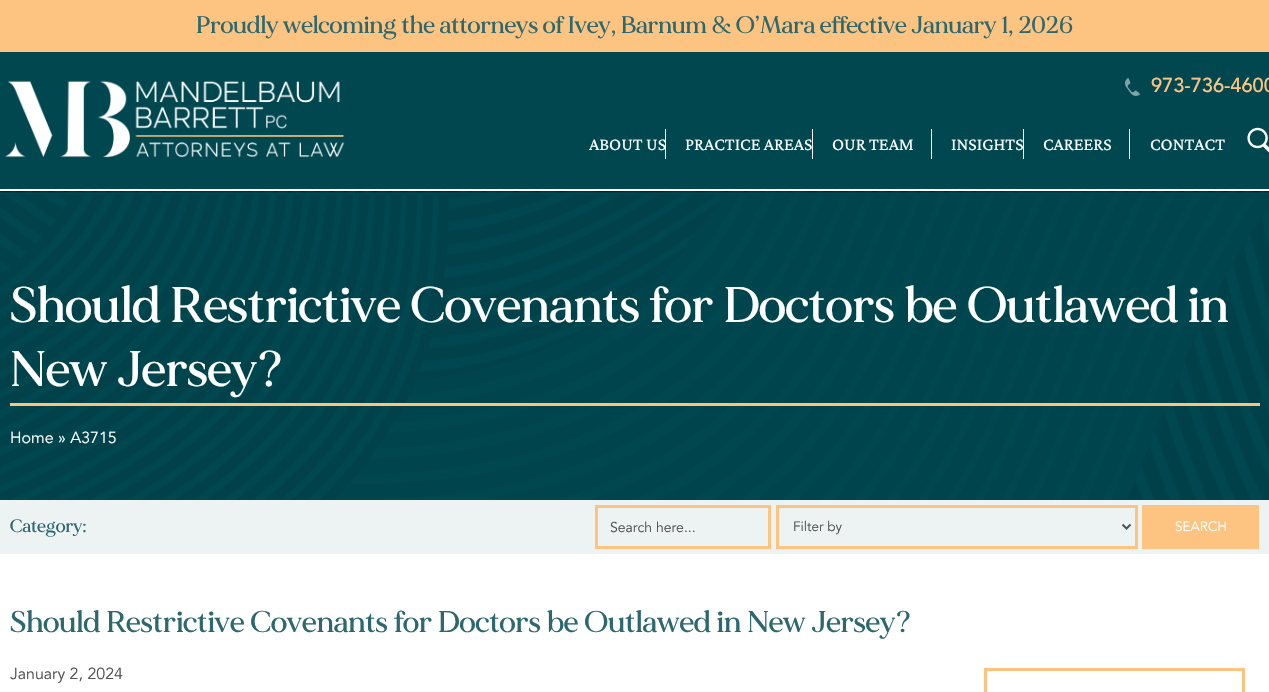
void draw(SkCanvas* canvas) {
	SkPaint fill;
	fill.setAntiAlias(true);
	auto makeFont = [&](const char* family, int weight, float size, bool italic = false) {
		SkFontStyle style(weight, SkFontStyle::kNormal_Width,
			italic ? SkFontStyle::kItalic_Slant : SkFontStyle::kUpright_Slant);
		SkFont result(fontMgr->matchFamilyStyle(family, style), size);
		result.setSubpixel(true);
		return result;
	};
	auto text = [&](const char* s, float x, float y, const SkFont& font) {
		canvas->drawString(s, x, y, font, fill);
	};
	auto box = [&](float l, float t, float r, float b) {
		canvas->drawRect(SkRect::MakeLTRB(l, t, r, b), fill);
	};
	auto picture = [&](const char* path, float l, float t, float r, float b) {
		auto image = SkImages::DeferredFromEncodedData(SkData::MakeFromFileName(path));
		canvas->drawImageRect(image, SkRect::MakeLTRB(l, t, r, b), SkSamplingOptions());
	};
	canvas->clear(0xFFFFFFFF);
	fill.setColor(0xFFFDC481);
	box(0, 0, 1269, 52);
	fill.setColor(0xFF004750);
	box(0, 52, 1269, 189);
	picture("image0.png", 4, 80, 345, 158);
	picture("image1.png", 1125, 78, 1140, 96);
	fill.setColor(0xFFFFFFFF);
	box(665, 129, 666, 159);
	box(812, 129, 813, 159);
	box(931, 129, 932, 159);
	box(1023, 129, 1024, 159);
	box(1129, 129, 1130, 159);
	picture("image2.png", 1247, 127, 1269, 153);
	picture("image3.png", 0, 191, 1269, 500);
	fill.setColor(0xFFFDC481);
	box(10, 403, 1260, 406);
	fill.setColor(0xFFEDF2F3);
	box(0, 500, 1269, 554);
	fill.setStyle(SkPaint::kStroke_Style);
	fill.setStrokeWidth(3);
	fill.setColor(0xFFFDC481);
	canvas->drawRect(SkRect::MakeLTRB(596.5f, 506.5f, 769.5f, 547.5f), fill);
	canvas->drawRect(SkRect::MakeLTRB(777.5f, 506.5f, 1136.5f, 547.5f), fill);
	fill.setStrokeWidth(2);
	fill.setColor(0xFF515151);
	canvas->drawPath(SkPathBuilder().moveTo(1122.5f, 524.5f).lineTo(1126.5f, 528.5f).lineTo(1130.5f, 524.5f).detach(), fill);
	fill.setStyle(SkPaint::kFill_Style);
	fill.setColor(0xFFFDC481);
	box(1142, 505, 1259, 549);
	fill.setStyle(SkPaint::kStroke_Style);
	fill.setStrokeWidth(3);
	canvas->drawRect(SkRect::MakeLTRB(985.5f, 669.5f, 1243.5f, 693.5f), fill);
	auto font1 = makeFont("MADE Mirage", 500, 24);
	fill.setStyle(SkPaint::kFill_Style);
	fill.setColor(0xFF2D686F);
	text("Proudly welcoming the attorneys of Ivey, Barnum & O’Mara effective January 1, 2026", 196, 33, font1);
	auto font2 = makeFont("Avenir", 500, 20);
	fill.setColor(0xFFFDC481);
	text("973-736-4600", 1151, 92, font2);
	auto font3 = makeFont("Crimson Pro", 400, 18);
	fill.setColor(0xFFFFFFFF);
	text("ABOUT US", 589, 150, font3);
	text("PRACTICE AREAS", 685, 150, font3);
	text("OUR TEAM", 832, 150, font3);
	text("INSIGHTS", 951, 150, font3);
	text("CAREERS", 1043, 150, font3);
	text("CONTACT", 1150, 150, font3);
	auto font4 = makeFont("MADE Mirage", 500, 50);
	text("Should Restrictive Covenants for Doctors be Outlawed in", 10, 322, font4);
	text("New Jersey?", 10, 386, font4);
	auto font5 = makeFont("Avenir", 400, 16);
	text("Home » A3715", 10, 443, font5);
	auto font6 = makeFont("MADE Mirage", 500, 18);
	fill.setColor(0xFF2D686F);
	text("Category:", 10, 532, font6);
	auto font7 = makeFont("Avenir", 400, 14);
	fill.setColor(0xFF515151);
	text("Search here...", 610, 532, font7);
	auto font8 = makeFont("Avenir", 400, 13.5f);
	text("Filter by", 793, 531, font8);
	fill.setColor(0xFFFFFFFF);
	text("SEARCH", 1175, 531, font8);
	auto font9 = makeFont("MADE Mirage", 500, 30);
	fill.setColor(0xFF2D686F);
	text("Should Restrictive Covenants for Doctors be Outlawed in New Jersey?", 10, 632, font9);
	fill.setColor(0xFF515151);
	text("January 2, 2024", 10, 679, font5);
}
